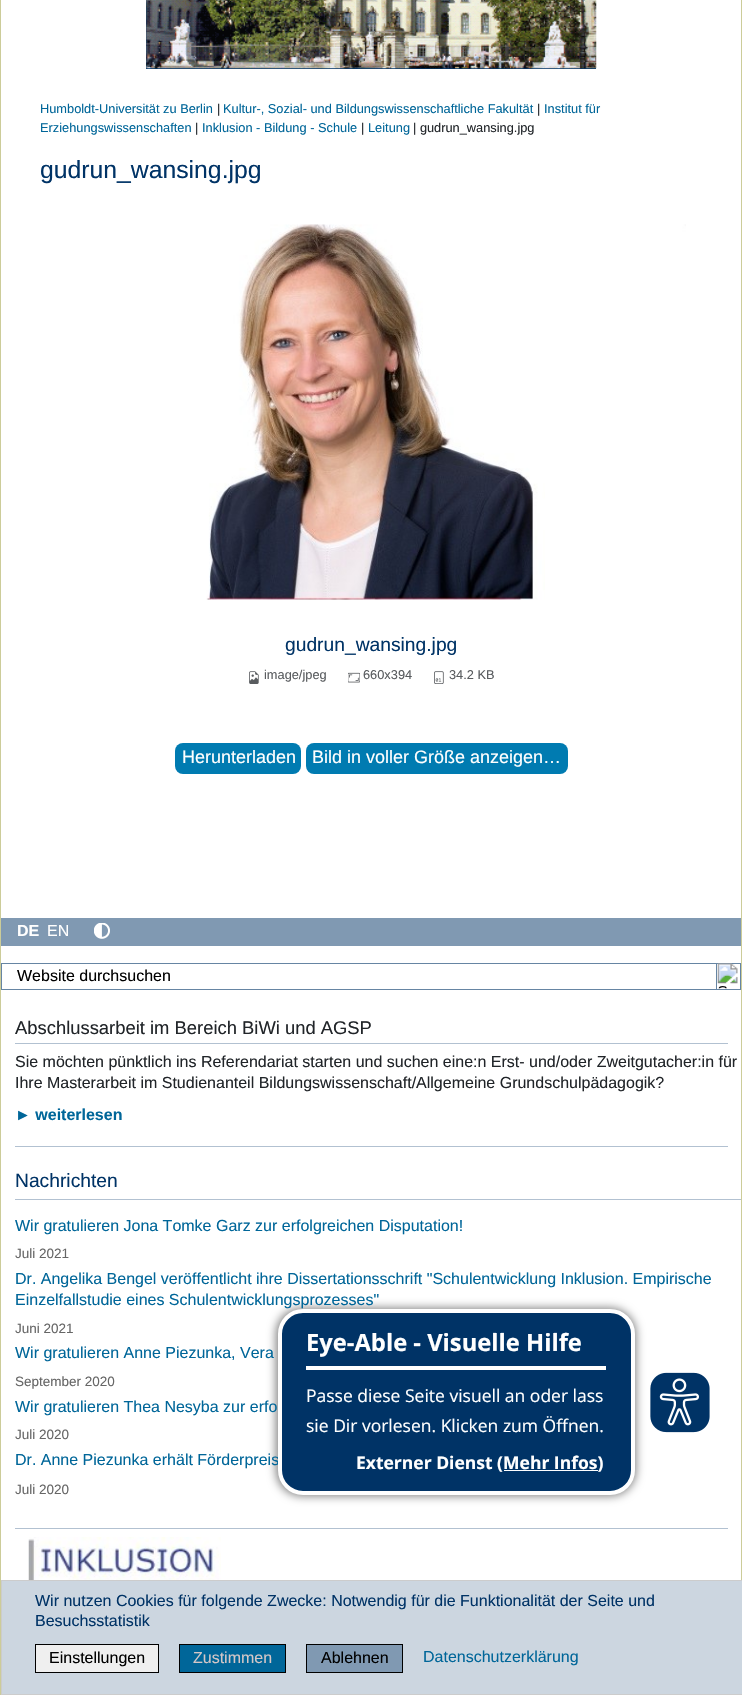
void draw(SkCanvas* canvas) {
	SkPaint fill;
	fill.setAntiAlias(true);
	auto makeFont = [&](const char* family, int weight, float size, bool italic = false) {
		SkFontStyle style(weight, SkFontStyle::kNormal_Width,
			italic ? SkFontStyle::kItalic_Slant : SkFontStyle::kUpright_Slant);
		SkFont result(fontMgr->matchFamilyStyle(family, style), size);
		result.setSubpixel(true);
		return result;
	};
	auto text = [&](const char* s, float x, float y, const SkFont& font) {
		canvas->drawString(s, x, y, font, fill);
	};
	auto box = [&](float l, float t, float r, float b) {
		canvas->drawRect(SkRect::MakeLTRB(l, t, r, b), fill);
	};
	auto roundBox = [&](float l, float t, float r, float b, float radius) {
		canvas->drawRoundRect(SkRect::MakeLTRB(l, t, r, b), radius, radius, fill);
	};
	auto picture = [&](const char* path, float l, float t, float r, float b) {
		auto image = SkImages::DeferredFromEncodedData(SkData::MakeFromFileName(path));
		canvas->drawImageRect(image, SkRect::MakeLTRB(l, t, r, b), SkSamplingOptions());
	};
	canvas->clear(0xFFFFFFFF);
	fill.setColor(0xFF003366);
	box(146, 0, 596, 69);
	picture("image0.png", 146, 0, 597, 69);
	fill.setColor(0xFFCCCC99);
	box(741, 0, 742, 1580);
	box(0, 0, 1, 1695);
	picture("image1.png", 206, 224, 686, 600);
	picture("image2.png", 249, 671, 259, 684);
	picture("image3.png", 348, 672, 360, 683);
	picture("image4.png", 434, 671, 444, 684);
	fill.setColor(0xFF007BB1);
	roundBox(175, 743, 301, 774, 8);
	roundBox(306, 743, 568, 774, 8);
	fill.setColor(0xFF8099B2);
	box(1, 918, 741, 946);
	picture("image5.png", 94, 923, 110, 939);
	fill.setStyle(SkPaint::kStroke_Style);
	fill.setStrokeWidth(1);
	fill.setColor(0xFF6685A3);
	canvas->drawRect(SkRect::MakeLTRB(1.5f, 963.5f, 740.5f, 989.5f), fill);
	canvas->drawRect(SkRect::MakeLTRB(716.5f, 963.5f, 740.5f, 989.5f), fill);
	picture("image6.png", 717, 963, 738, 989);
	fill.setStyle(SkPaint::kFill_Style);
	fill.setColor(0xFFB2C1D1);
	box(15, 1043, 728, 1044);
	box(15, 1146, 728, 1147);
	box(15, 1199, 741, 1200);
	box(15, 1528, 728, 1529);
	picture("image7.png", 28, 1537, 221, 1580);
	fill.setColor(0x80000000);
	fill.setMaskFilter(SkMaskFilter::MakeBlur(kNormal_SkBlurStyle, 5));
	canvas->drawRoundRect(SkRect::MakeLTRB(276, 1308, 636, 1496), 26, 26, fill);
	fill.setMaskFilter(nullptr);
	picture("image8.png", 650, 1372, 710, 1433);
	fill.setColor(0xFFCCD6E0);
	canvas->drawRect(SkRect::MakeLTRB(1.5f, 1580.5f, 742.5f, 1694.5f), fill);
	fill.setStyle(SkPaint::kStroke_Style);
	fill.setColor(0xFFCCCCCC);
	canvas->drawRect(SkRect::MakeLTRB(1.5f, 1580.5f, 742.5f, 1694.5f), fill);
	fill.setStyle(SkPaint::kFill_Style);
	fill.setColor(0xFFEFEFEF);
	canvas->drawRect(SkRect::MakeLTRB(35.5f, 1644.5f, 158.5f, 1672.5f), fill);
	fill.setStyle(SkPaint::kStroke_Style);
	fill.setColor(0xFF000000);
	canvas->drawRect(SkRect::MakeLTRB(35.5f, 1644.5f, 158.5f, 1672.5f), fill);
	fill.setStyle(SkPaint::kFill_Style);
	fill.setColor(0xFF006699);
	canvas->drawRect(SkRect::MakeLTRB(179.5f, 1644.5f, 285.5f, 1672.5f), fill);
	fill.setStyle(SkPaint::kStroke_Style);
	fill.setColor(0xFF000000);
	canvas->drawRect(SkRect::MakeLTRB(179.5f, 1644.5f, 285.5f, 1672.5f), fill);
	fill.setStyle(SkPaint::kFill_Style);
	fill.setColor(0xFF8099B2);
	canvas->drawRect(SkRect::MakeLTRB(306.5f, 1644.5f, 402.5f, 1672.5f), fill);
	fill.setStyle(SkPaint::kStroke_Style);
	fill.setColor(0xFF000000);
	canvas->drawRect(SkRect::MakeLTRB(306.5f, 1644.5f, 402.5f, 1672.5f), fill);
	auto font1 = makeFont("Liberation Sans", 400, 12.8f);
	fill.setStyle(SkPaint::kFill_Style);
	fill.setColor(0xFF006699);
	text("Humboldt-Universität zu Berlin", 40, 113, font1);
	fill.setColor(0xFF212529);
	text("|", 217, 113, font1);
	fill.setColor(0xFF006699);
	text("Kultur-, Sozial- und Bildungswissenschaftliche Fakultät", 223, 113, font1);
	fill.setColor(0xFF212529);
	text("|", 537, 113, font1);
	fill.setColor(0xFF006699);
	text("Institut für", 544, 113, font1);
	text("Erziehungswissenschaften", 40, 132, font1);
	fill.setColor(0xFF212529);
	text("|", 195, 132, font1);
	fill.setColor(0xFF006699);
	text("Inklusion - Bildung - Schule", 202, 132, font1);
	fill.setColor(0xFF212529);
	text("|", 361, 132, font1);
	fill.setColor(0xFF006699);
	text("Leitung", 368, 132, font1);
	fill.setColor(0xFF212529);
	text("| gudrun_wansing.jpg", 413, 132, font1);
	auto font2 = makeFont("Liberation Sans", 400, 24.75f);
	fill.setColor(0xFF003366);
	text("gudrun_wansing.jpg", 40, 178, font2);
	auto font3 = makeFont("Liberation Sans", 400, 19.25f);
	text("gudrun_wansing.jpg", 285, 651, font3);
	fill.setColor(0xFF595C5F);
	text("image/jpeg", 264, 679, font1);
	text("660x394", 363, 679, font1);
	text("34.2 KB", 449, 679, font1);
	auto font4 = makeFont("Liberation Sans", 400, 18);
	fill.setColor(0xFFFFFFFF);
	text("Herunterladen", 182, 763, font4);
	text("Bild in voller Größe anzeigen…", 312, 763, font4);
	auto font5 = makeFont("Liberation Sans", 700, 16);
	text("DE", 17, 936, font5);
	auto font6 = makeFont("Liberation Sans", 400, 16);
	text("EN", 47, 936, font6);
	fill.setColor(0xFF000000);
	text("Website durchsuchen", 17, 981, font6);
	auto font7 = makeFont("Liberation Sans", 400, 18.4f);
	fill.setColor(0xFF212529);
	text("Abschlussarbeit im Bereich BiWi und AGSP", 15, 1034, font7);
	text("Sie möchten pünktlich ins Referendariat starten und suchen eine:n Erst- und/oder Zweitgutacher:in für", 15, 1067, font6);
	text("Ihre Masterarbeit im Studienanteil Bildungswissenschaft/Allgemeine Grundschulpädagogik?", 15, 1088, font6);
	fill.setColor(0xFF006699);
	text("► weiterlesen", 15, 1120, font5);
	fill.setColor(0xFF003366);
	text("Nachrichten", 15, 1187, font3);
	fill.setColor(0xFF006699);
	text("Wir gratulieren Jona Tomke Garz zur erfolgreichen Disputation!", 15, 1231, font6);
	auto font8 = makeFont("Liberation Sans", 400, 13.5f);
	fill.setColor(0xFF666666);
	text("Juli 2021", 15, 1258, font8);
	fill.setColor(0xFF006699);
	text("Dr. Angelika Bengel veröffentlicht ihre Dissertationsschrift \"Schulentwicklung Inklusion. Empirische", 15, 1284, font6);
	text("Einzelfallstudie eines Schulentwicklungsprozesses\"", 15, 1305, font6);
	fill.setColor(0xFF666666);
	text("Juni 2021", 15, 1333, font8);
	fill.setColor(0xFF006699);
	text("Wir gratulieren Anne Piezunka, Vera", 15, 1358, font6);
	fill.setColor(0xFF666666);
	text("September 2020", 15, 1386, font8);
	fill.setColor(0xFF006699);
	text("Wir gratulieren Thea Nesyba zur erfo", 15, 1412, font6);
	fill.setColor(0xFF666666);
	text("Juli 2020", 15, 1439, font8);
	fill.setColor(0xFF006699);
	text("Dr. Anne Piezunka erhält Förderpreis", 15, 1465, font6);
	fill.setColor(0xFF666666);
	text("Juli 2020", 15, 1494, font8);
	fill.setColor(0xFF003366);
	canvas->drawRoundRect(SkRect::MakeLTRB(280, 1311, 633, 1493), 23, 23, fill);
	fill.setStyle(SkPaint::kStroke_Style);
	fill.setStrokeWidth(4);
	fill.setColor(0xFFFFFFFF);
	canvas->drawRoundRect(SkRect::MakeLTRB(280, 1311, 633, 1493), 23, 23, fill);
	fill.setStyle(SkPaint::kFill_Style);
	box(306, 1366, 606, 1370);
	auto font9 = makeFont("Open Sans", 700, 23.75f);
	text("Eye-Able - Visuelle Hilfe", 306, 1351, font9);
	auto font10 = makeFont("Open Sans", 400, 17.5f);
	text("Passe diese Seite visuell an oder lass", 306, 1402, font10);
	text("sie Dir vorlesen. Klicken zum Öffnen.", 306, 1432, font10);
	auto font11 = makeFont("Open Sans", 700, 17.5f);
	text("Externer Dienst (Mehr Infos)", 356, 1469, font11);
	box(504, 1470, 598, 1471);
	fill.setColor(0xFF003366);
	text("Wir nutzen Cookies für folgende Zwecke: Notwendig für die Funktionalität der Seite und", 35, 1606, font6);
	text("Besuchsstatistik", 35, 1626, font6);
	fill.setColor(0xFF000000);
	text("Einstellungen", 49, 1663, font6);
	fill.setColor(0xFFD5C7C7);
	text("Zustimmen", 193, 1663, font6);
	fill.setColor(0xFF000000);
	text("Ablehnen", 321, 1663, font6);
	fill.setColor(0xFF006699);
	text("Datenschutzerklärung", 423, 1662, font6);
}
